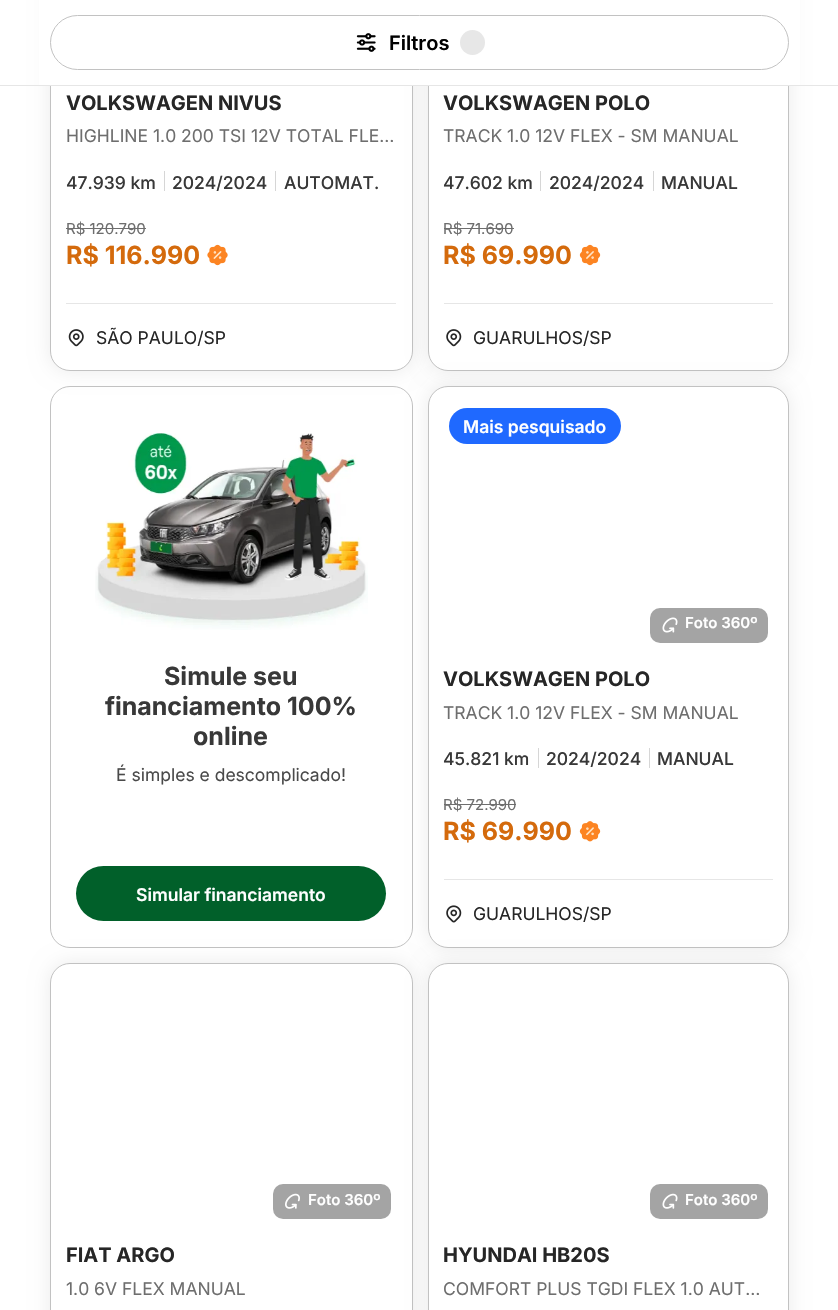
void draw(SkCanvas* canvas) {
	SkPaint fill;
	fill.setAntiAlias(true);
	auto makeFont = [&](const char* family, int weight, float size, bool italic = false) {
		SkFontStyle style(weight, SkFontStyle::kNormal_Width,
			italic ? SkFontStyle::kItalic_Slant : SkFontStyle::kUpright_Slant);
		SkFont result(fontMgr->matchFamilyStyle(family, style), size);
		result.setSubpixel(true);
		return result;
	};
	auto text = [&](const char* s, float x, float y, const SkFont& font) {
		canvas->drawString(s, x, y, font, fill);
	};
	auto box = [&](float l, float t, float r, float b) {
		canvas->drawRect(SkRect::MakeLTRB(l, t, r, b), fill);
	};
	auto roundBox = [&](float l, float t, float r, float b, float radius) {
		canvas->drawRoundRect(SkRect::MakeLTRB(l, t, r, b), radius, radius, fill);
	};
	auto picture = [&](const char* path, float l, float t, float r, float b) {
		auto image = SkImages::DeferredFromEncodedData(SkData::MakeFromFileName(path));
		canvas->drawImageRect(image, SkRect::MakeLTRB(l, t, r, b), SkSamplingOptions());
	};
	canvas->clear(0xFFFFFFFF);
	fill.setColor(0x14000000);
	fill.setMaskFilter(SkMaskFilter::MakeBlur(kNormal_SkBlurStyle, 10));
	canvas->drawRoundRect(SkRect::MakeLTRB(50, -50, 413, 371), 20, 20, fill);
	fill.setMaskFilter(nullptr);
	fill.setColor(0xFFFFFFFF);
	canvas->drawRoundRect(SkRect::MakeLTRB(50.5f, -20.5f, 412.5f, 370.5f), 19.5f, 19.5f, fill);
	fill.setStyle(SkPaint::kStroke_Style);
	fill.setStrokeWidth(1);
	fill.setColor(0xFFC2C2C2);
	canvas->drawRoundRect(SkRect::MakeLTRB(50.5f, -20.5f, 412.5f, 370.5f), 19.5f, 19.5f, fill);
	fill.setStyle(SkPaint::kFill_Style);
	fill.setColor(0x14000000);
	fill.setMaskFilter(SkMaskFilter::MakeBlur(kNormal_SkBlurStyle, 10));
	canvas->drawRoundRect(SkRect::MakeLTRB(428, -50, 789, 371), 20, 20, fill);
	fill.setMaskFilter(nullptr);
	fill.setColor(0xFFFFFFFF);
	canvas->drawRoundRect(SkRect::MakeLTRB(428.5f, -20.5f, 788.5f, 370.5f), 19.5f, 19.5f, fill);
	fill.setStyle(SkPaint::kStroke_Style);
	fill.setColor(0xFFC2C2C2);
	canvas->drawRoundRect(SkRect::MakeLTRB(428.5f, -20.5f, 788.5f, 370.5f), 19.5f, 19.5f, fill);
	fill.setStyle(SkPaint::kFill_Style);
	fill.setColor(0xFFFFFFFF);
	box(39, 0, 800, 85);
	fill.setColor(0xFFE6E6E6);
	box(0, 85, 838, 86);
	fill.setStyle(SkPaint::kStroke_Style);
	fill.setColor(0xFFC2C2C2);
	canvas->drawRoundRect(SkRect::MakeLTRB(50.5f, 15.5f, 788.5f, 69.5f), 27, 27, fill);
	picture("image0.png", 356, 33, 376, 52);
	fill.setStyle(SkPaint::kFill_Style);
	fill.setColor(0xFFE7E7E7);
	canvas->drawCircle(472.5f, 42.5f, 12.5f, fill);
	fill.setColor(0xFFD6D6D6);
	box(164, 171, 165, 191);
	box(275, 171, 276, 191);
	fill.setColor(0xFF6E6E6E);
	box(66, 228, 146, 229);
	picture("image1.png", 207, 244, 228, 266);
	fill.setColor(0xFFE6E6E6);
	box(66, 303, 396, 304);
	picture("image2.png", 68, 329, 84, 347);
	fill.setColor(0xFFD6D6D6);
	box(540, 171, 541, 191);
	box(653, 171, 654, 191);
	fill.setColor(0xFF6E6E6E);
	box(444, 228, 514, 229);
	picture("image3.png", 579, 244, 601, 266);
	fill.setColor(0xFFE6E6E6);
	box(444, 303, 773, 304);
	picture("image4.png", 446, 329, 462, 347);
	fill.setStyle(SkPaint::kStroke_Style);
	fill.setColor(0xFFC2C2C2);
	canvas->drawRoundRect(SkRect::MakeLTRB(50.5f, 386.5f, 412.5f, 947.5f), 19.5f, 19.5f, fill);
	picture("image5.png", 95, 433, 368, 630);
	fill.setStyle(SkPaint::kFill_Style);
	fill.setColor(0xFF01602A);
	roundBox(76, 866, 386, 921, 27.5f);
	fill.setColor(0x14000000);
	fill.setMaskFilter(SkMaskFilter::MakeBlur(kNormal_SkBlurStyle, 10));
	canvas->drawRoundRect(SkRect::MakeLTRB(428, 386, 789, 948), 20, 20, fill);
	fill.setMaskFilter(nullptr);
	fill.setColor(0xFFFFFFFF);
	canvas->drawRoundRect(SkRect::MakeLTRB(428.5f, 386.5f, 788.5f, 947.5f), 19.5f, 19.5f, fill);
	fill.setStyle(SkPaint::kStroke_Style);
	fill.setColor(0xFFC2C2C2);
	canvas->drawRoundRect(SkRect::MakeLTRB(428.5f, 386.5f, 788.5f, 947.5f), 19.5f, 19.5f, fill);
	fill.setStyle(SkPaint::kFill_Style);
	fill.setColor(0xFF1F69FF);
	roundBox(449, 408, 621, 444, 18);
	fill.setColor(0x804A4A4A);
	roundBox(650, 608, 768, 643, 10);
	picture("image6.png", 662, 617, 678, 633);
	fill.setColor(0xFFD6D6D6);
	box(538, 748, 539, 768);
	box(649, 748, 650, 768);
	fill.setColor(0xFF6E6E6E);
	box(444, 804, 516, 805);
	picture("image7.png", 579, 821, 601, 842);
	fill.setColor(0xFFE6E6E6);
	box(444, 879, 773, 880);
	picture("image8.png", 446, 905, 462, 923);
	fill.setColor(0x14000000);
	fill.setMaskFilter(SkMaskFilter::MakeBlur(kNormal_SkBlurStyle, 10));
	canvas->drawRoundRect(SkRect::MakeLTRB(50, 963, 413, 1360), 20, 20, fill);
	fill.setMaskFilter(nullptr);
	fill.setColor(0xFFFFFFFF);
	canvas->drawRoundRect(SkRect::MakeLTRB(50.5f, 963.5f, 412.5f, 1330.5f), 19.5f, 19.5f, fill);
	fill.setStyle(SkPaint::kStroke_Style);
	fill.setColor(0xFFC2C2C2);
	canvas->drawRoundRect(SkRect::MakeLTRB(50.5f, 963.5f, 412.5f, 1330.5f), 19.5f, 19.5f, fill);
	fill.setStyle(SkPaint::kFill_Style);
	fill.setColor(0x804A4A4A);
	roundBox(273, 1184, 391, 1219, 10);
	picture("image9.png", 285, 1193, 300, 1209);
	fill.setColor(0x14000000);
	fill.setMaskFilter(SkMaskFilter::MakeBlur(kNormal_SkBlurStyle, 10));
	canvas->drawRoundRect(SkRect::MakeLTRB(428, 963, 789, 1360), 20, 20, fill);
	fill.setMaskFilter(nullptr);
	fill.setColor(0xFFFFFFFF);
	canvas->drawRoundRect(SkRect::MakeLTRB(428.5f, 963.5f, 788.5f, 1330.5f), 19.5f, 19.5f, fill);
	fill.setStyle(SkPaint::kStroke_Style);
	fill.setColor(0xFFC2C2C2);
	canvas->drawRoundRect(SkRect::MakeLTRB(428.5f, 963.5f, 788.5f, 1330.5f), 19.5f, 19.5f, fill);
	fill.setStyle(SkPaint::kFill_Style);
	fill.setColor(0x804A4A4A);
	roundBox(650, 1184, 768, 1219, 10);
	picture("image10.png", 662, 1193, 678, 1209);
	auto font1 = makeFont("Inter", 600, 20);
	fill.setColor(0xFF000000);
	text("Filtros", 389, 50, font1);
	auto font2 = makeFont("Inter", 700, 20);
	fill.setColor(0xFF262626);
	text("VOLKSWAGEN NIVUS", 66, 110, font2);
	auto font3 = makeFont("Inter", 400, 17.5f);
	fill.setColor(0xFF6E6E6E);
	text("HIGHLINE 1.0 200 TSI 12V TOTAL FLE…", 66, 142, font3);
	auto font4 = makeFont("Inter", 500, 17.5f);
	fill.setColor(0xFF383838);
	text("47.939 km", 66, 189, font4);
	text("2024/2024", 172, 189, font4);
	text("AUTOMAT.", 284, 189, font4);
	auto font5 = makeFont("Inter", 400, 15);
	fill.setColor(0xFF6E6E6E);
	text("R$ 120.790", 66, 234, font5);
	auto font6 = makeFont("Inter", 700, 25);
	fill.setColor(0xFFD46A0C);
	text("R$ 116.990", 66, 264, font6);
	fill.setColor(0xFF262626);
	text("SÃO PAULO/SP", 96, 344, font3);
	text("VOLKSWAGEN POLO", 443, 110, font2);
	fill.setColor(0xFF6E6E6E);
	text("TRACK 1.0 12V FLEX - SM MANUAL", 443, 142, font3);
	fill.setColor(0xFF383838);
	text("47.602 km", 443, 189, font4);
	text("2024/2024", 549, 189, font4);
	text("MANUAL", 661, 189, font4);
	fill.setColor(0xFF6E6E6E);
	text("R$ 71.690", 443, 234, font5);
	fill.setColor(0xFFD46A0C);
	text("R$ 69.990", 443, 264, font6);
	fill.setColor(0xFF262626);
	text("GUARULHOS/SP", 473, 344, font3);
	fill.setColor(0xFF383838);
	text("Simule seu", 164, 685, font6);
	text("financiamento 100%", 105, 715, font6);
	text("online", 193, 745, font6);
	fill.setColor(0xFF4A4A4A);
	text("É simples e descomplicado!", 116, 781, font3);
	auto font7 = makeFont("Inter", 600, 17.5f);
	fill.setColor(0xFFFFFFFF);
	text("Simular financiamento", 136, 901, font7);
	text("Mais pesquisado", 463, 433, font7);
	auto font8 = makeFont("Inter", 600, 15);
	text("Foto 360º", 685, 628, font8);
	fill.setColor(0xFF262626);
	text("VOLKSWAGEN POLO", 443, 686, font2);
	fill.setColor(0xFF6E6E6E);
	text("TRACK 1.0 12V FLEX - SM MANUAL", 443, 719, font3);
	fill.setColor(0xFF383838);
	text("45.821 km", 443, 765, font4);
	text("2024/2024", 546, 765, font4);
	text("MANUAL", 657, 765, font4);
	fill.setColor(0xFF6E6E6E);
	text("R$ 72.990", 443, 810, font5);
	fill.setColor(0xFFD46A0C);
	text("R$ 69.990", 443, 840, font6);
	fill.setColor(0xFF262626);
	text("GUARULHOS/SP", 473, 920, font3);
	fill.setColor(0xFFFFFFFF);
	text("Foto 360º", 308, 1205, font8);
	fill.setColor(0xFF262626);
	text("FIAT ARGO", 66, 1262, font2);
	fill.setColor(0xFF6E6E6E);
	text("1.0 6V FLEX MANUAL", 66, 1295, font3);
	fill.setColor(0xFFFFFFFF);
	text("Foto 360º", 685, 1205, font8);
	fill.setColor(0xFF262626);
	text("HYUNDAI HB20S", 443, 1262, font2);
	fill.setColor(0xFF6E6E6E);
	text("COMFORT PLUS TGDI FLEX 1.0 AUT…", 443, 1295, font3);
}
